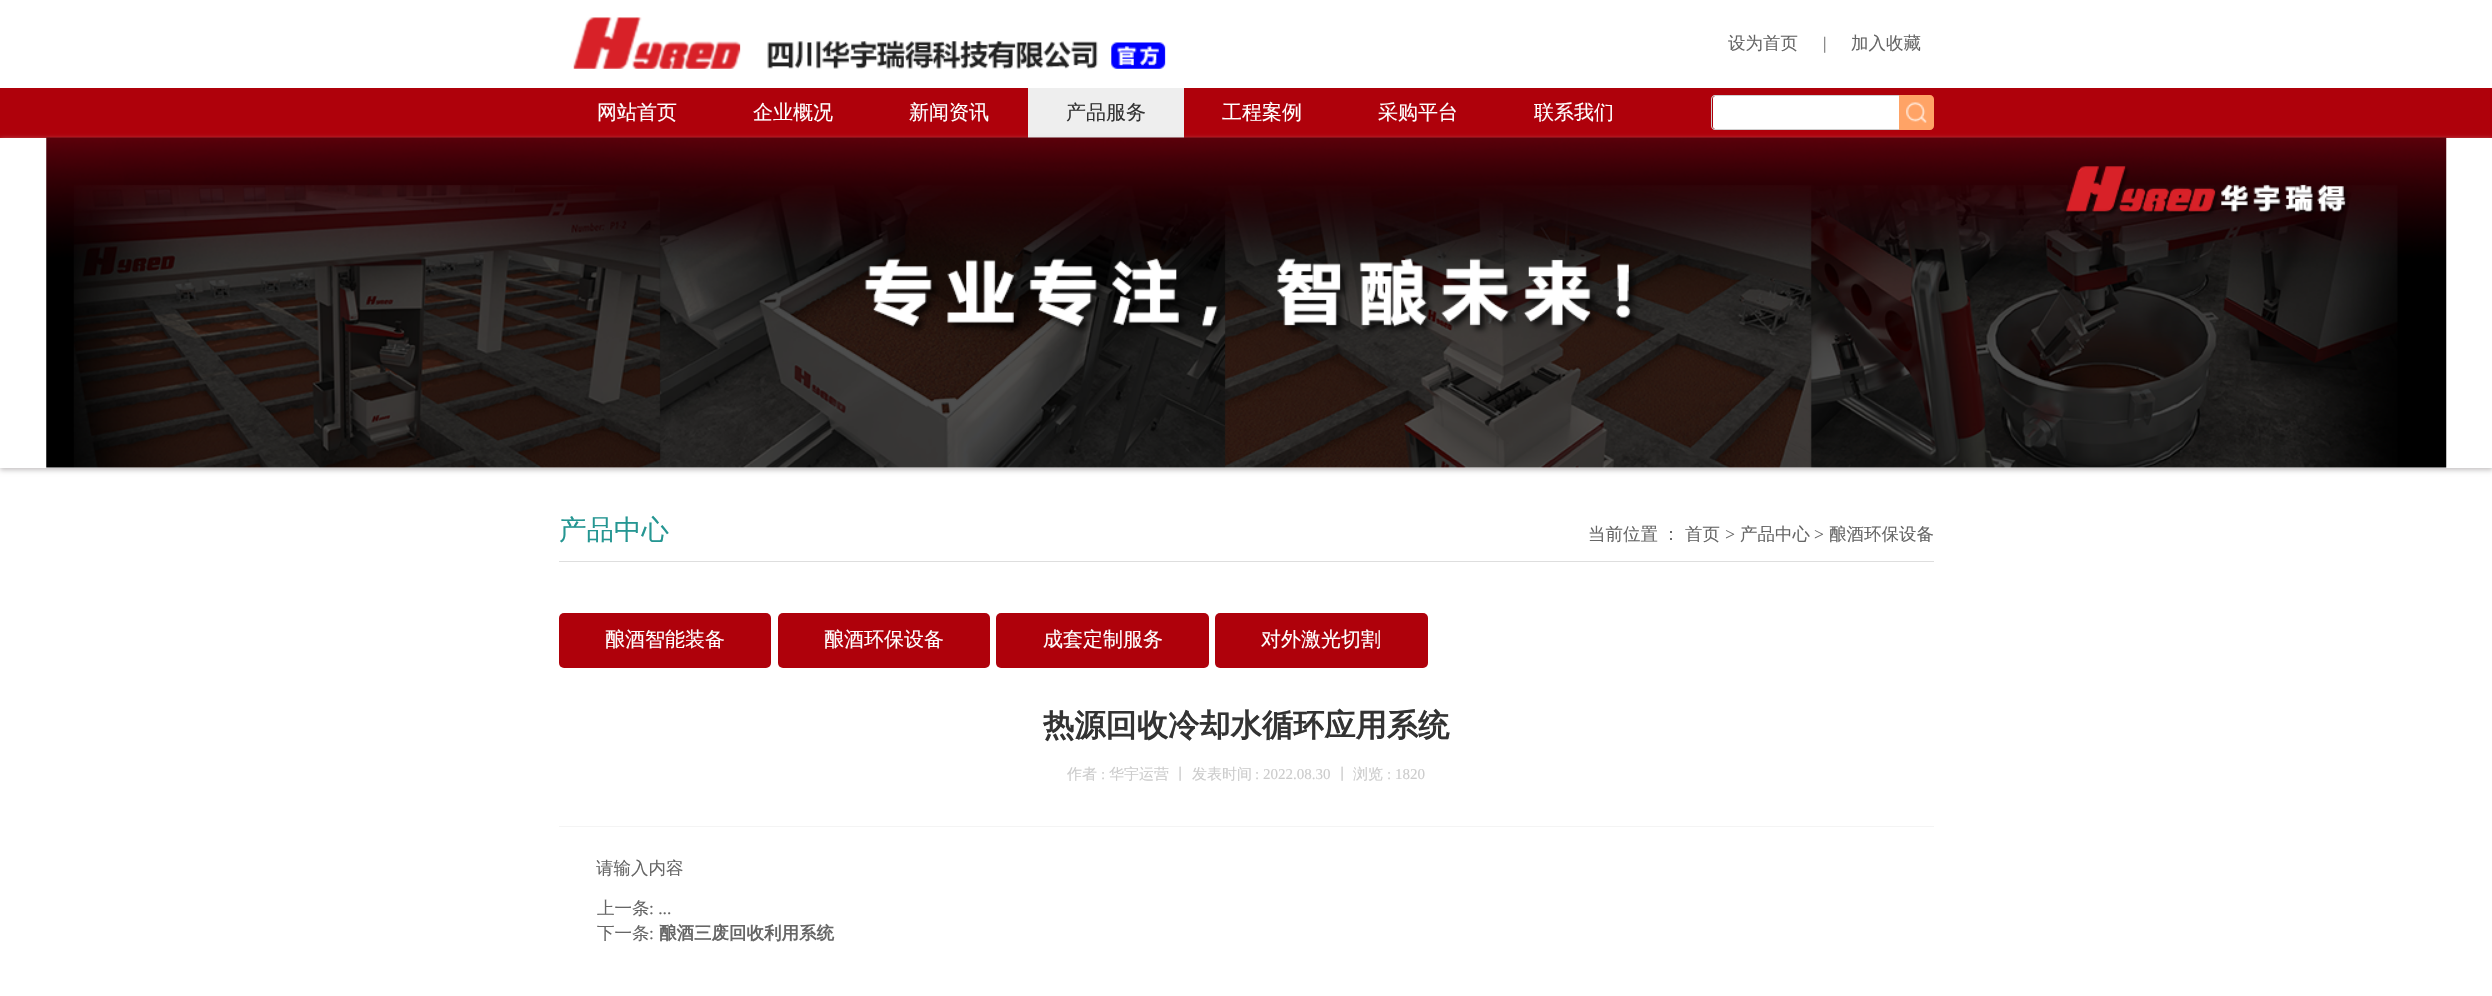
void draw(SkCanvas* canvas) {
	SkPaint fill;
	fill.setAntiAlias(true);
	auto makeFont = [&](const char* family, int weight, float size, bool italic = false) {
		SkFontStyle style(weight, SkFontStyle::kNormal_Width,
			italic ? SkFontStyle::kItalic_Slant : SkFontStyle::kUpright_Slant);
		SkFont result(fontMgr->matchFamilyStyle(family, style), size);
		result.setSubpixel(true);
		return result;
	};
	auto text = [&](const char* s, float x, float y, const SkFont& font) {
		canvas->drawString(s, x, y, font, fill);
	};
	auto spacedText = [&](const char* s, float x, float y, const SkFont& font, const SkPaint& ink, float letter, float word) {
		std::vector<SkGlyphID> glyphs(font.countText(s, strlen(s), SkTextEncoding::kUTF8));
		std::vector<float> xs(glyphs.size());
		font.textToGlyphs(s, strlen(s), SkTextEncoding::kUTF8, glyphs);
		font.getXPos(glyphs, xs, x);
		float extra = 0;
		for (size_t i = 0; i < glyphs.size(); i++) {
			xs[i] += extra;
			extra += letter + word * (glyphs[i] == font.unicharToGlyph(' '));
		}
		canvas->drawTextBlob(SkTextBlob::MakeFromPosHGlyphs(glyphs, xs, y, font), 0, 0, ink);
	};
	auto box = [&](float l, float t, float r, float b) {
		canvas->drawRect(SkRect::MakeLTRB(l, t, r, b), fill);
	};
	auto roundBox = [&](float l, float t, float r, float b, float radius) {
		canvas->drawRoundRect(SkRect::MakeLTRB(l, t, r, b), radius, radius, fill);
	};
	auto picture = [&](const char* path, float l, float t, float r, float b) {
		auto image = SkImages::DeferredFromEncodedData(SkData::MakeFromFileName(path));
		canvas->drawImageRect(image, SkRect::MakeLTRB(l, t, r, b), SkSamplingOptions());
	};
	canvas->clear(0xFFFFFFFF);
	picture("image0.png", 573, 17, 1166, 69);
	fill.setColor(0xFFAF010B);
	box(0, 88, 2492, 138);
	fill.setColor(0xFFEEEEEE);
	box(1028, 88, 1184, 138);
	fill.setColor(0xFFFFFFFF);
	canvas->drawPath(SkPathBuilder().moveTo(1715.5f, 96).lineTo(1899, 96).lineTo(1899, 129).lineTo(1715.5f, 129).cubicTo(1714, 129, 1713, 128, 1713, 126.5f).lineTo(1713, 98.5f).cubicTo(1713, 97, 1714, 96, 1715.5f, 96).close().detach(), fill);
	fill.setColor(0xFFD0D0D0);
	canvas->drawPath(SkPathBuilder(SkPathFillType::kEvenOdd).moveTo(1715, 95).lineTo(1899, 95).lineTo(1899, 130).lineTo(1715, 130).cubicTo(1713, 130, 1711, 128, 1711, 126).lineTo(1711, 99).cubicTo(1711, 97, 1713, 95, 1715, 95).close().moveTo(1715, 96).lineTo(1899, 96).lineTo(1899, 129).lineTo(1715, 129).cubicTo(1714, 129, 1712, 128, 1712, 126).lineTo(1712, 99).cubicTo(1712, 97, 1714, 96, 1715, 96).close().detach(), fill);
	fill.setColor(0xFFFFA366);
	canvas->drawPath(SkPathBuilder().moveTo(1899, 95).lineTo(1930, 95).cubicTo(1932, 95, 1934, 97, 1934, 99).lineTo(1934, 126).cubicTo(1934, 128, 1932, 130, 1930, 130).lineTo(1899, 130).close().detach(), fill);
	picture("image1.png", 1906, 102, 1927, 123);
	canvas->save();
	canvas->clipPath(SkPathBuilder(SkPathFillType::kEvenOdd).moveTo(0, 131).lineTo(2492, 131).lineTo(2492, 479).lineTo(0, 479).close().moveTo(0, 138).lineTo(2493, 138).lineTo(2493, 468).lineTo(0, 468).close().detach(), true);
	fill.setColor(0xFFC3C0C1);
	fill.setMaskFilter(SkMaskFilter::MakeBlur(kNormal_SkBlurStyle, 2.5f));
	canvas->drawRect(SkRect::MakeLTRB(0, 140, 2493, 470), fill);
	fill.setMaskFilter(nullptr);
	canvas->restore();
	picture("image2.png", 46, 137, 2447, 468);
	fill.setColor(0xFFDEDEDE);
	box(559, 561, 1934, 562);
	fill.setColor(0xFFAF010B);
	roundBox(559, 613, 771, 668, 5);
	roundBox(778, 613, 990, 668, 5);
	roundBox(996, 613, 1209, 668, 5);
	roundBox(1215, 613, 1428, 668, 5);
	fill.setColor(0xFFF4F4F4);
	box(559, 826, 1934, 827);
	auto font1 = makeFont("WenQuanYi Zen Hei", 500, 17.5f);
	fill.setColor(0xFF666666);
	text("设为首页", 1728, 49, font1);
	auto font2 = makeFont("Liberation Serif", 400, 17.5f);
	text("|", 1823, 49, font2);
	text("加入收藏", 1851, 49, font1);
	auto font3 = makeFont("WenQuanYi Zen Hei", 500, 20);
	fill.setColor(0xFFFFFFFF);
	text("网站首页", 597, 119, font3);
	text("企业概况", 753, 119, font3);
	text("新闻资讯", 909, 119, font3);
	fill.setColor(0xFF333333);
	text("产品服务", 1066, 119, font3);
	fill.setColor(0xFFFFFFFF);
	text("工程案例", 1222, 119, font3);
	text("采购平台", 1378, 119, font3);
	text("联系我们", 1534, 119, font3);
	auto font4 = makeFont("WenQuanYi Zen Hei", 500, 27.5f);
	fill.setColor(0xFF259692);
	text("产品中心", 559, 539, font4);
	fill.setColor(0xFF666666);
	spacedText("当前位置 ：", 1588, 540, font1, fill, 0, -1);
	text("首页", 1685, 540, font1);
	auto font5 = makeFont("Liberation Serif", 400, 17.5f, true);
	text(">", 1724, 540, font5);
	text("产品中心", 1740, 540, font1);
	text(">", 1814, 540, font2);
	text("酿酒环保设备", 1829, 540, font1);
	fill.setColor(0xFFFFFFFF);
	text("酿酒智能装备", 605, 646, font3);
	text("酿酒环保设备", 824, 646, font3);
	text("成套定制服务", 1043, 646, font3);
	text("对外激光切割", 1261, 646, font3);
	auto font6 = makeFont("WenQuanYi Zen Hei", 700, 31.25f);
	fill.setColor(0xFF333333);
	text("热源回收冷却水循环应用系统", 1043, 736, font6);
	auto font7 = makeFont("WenQuanYi Zen Hei", 500, 15);
	fill.setColor(0xFFCCCCCC);
	text("作者", 1067, 779, font7);
	auto font8 = makeFont("Liberation Serif", 400, 15);
	text(":", 1101, 779, font8);
	text("华宇运营", 1109, 779, font7);
	text("丨", 1173, 779, font7);
	text("发表时间", 1192, 779, font7);
	text(": 2022.08.30", 1255, 779, font8);
	text("丨", 1335, 779, font7);
	text("浏览", 1353, 779, font7);
	text(": 1820", 1387, 779, font8);
	fill.setColor(0xFF666666);
	text("请输入内容", 596, 874, font1);
	text("上一条", 597, 914, font1);
	text(": ...", 649, 914, font2);
	text("下一条", 597, 939, font1);
	text(":", 649, 939, font2);
	auto font9 = makeFont("WenQuanYi Zen Hei", 700, 17.5f);
	text("酿酒三废回收利用系统", 659, 939, font9);
}
